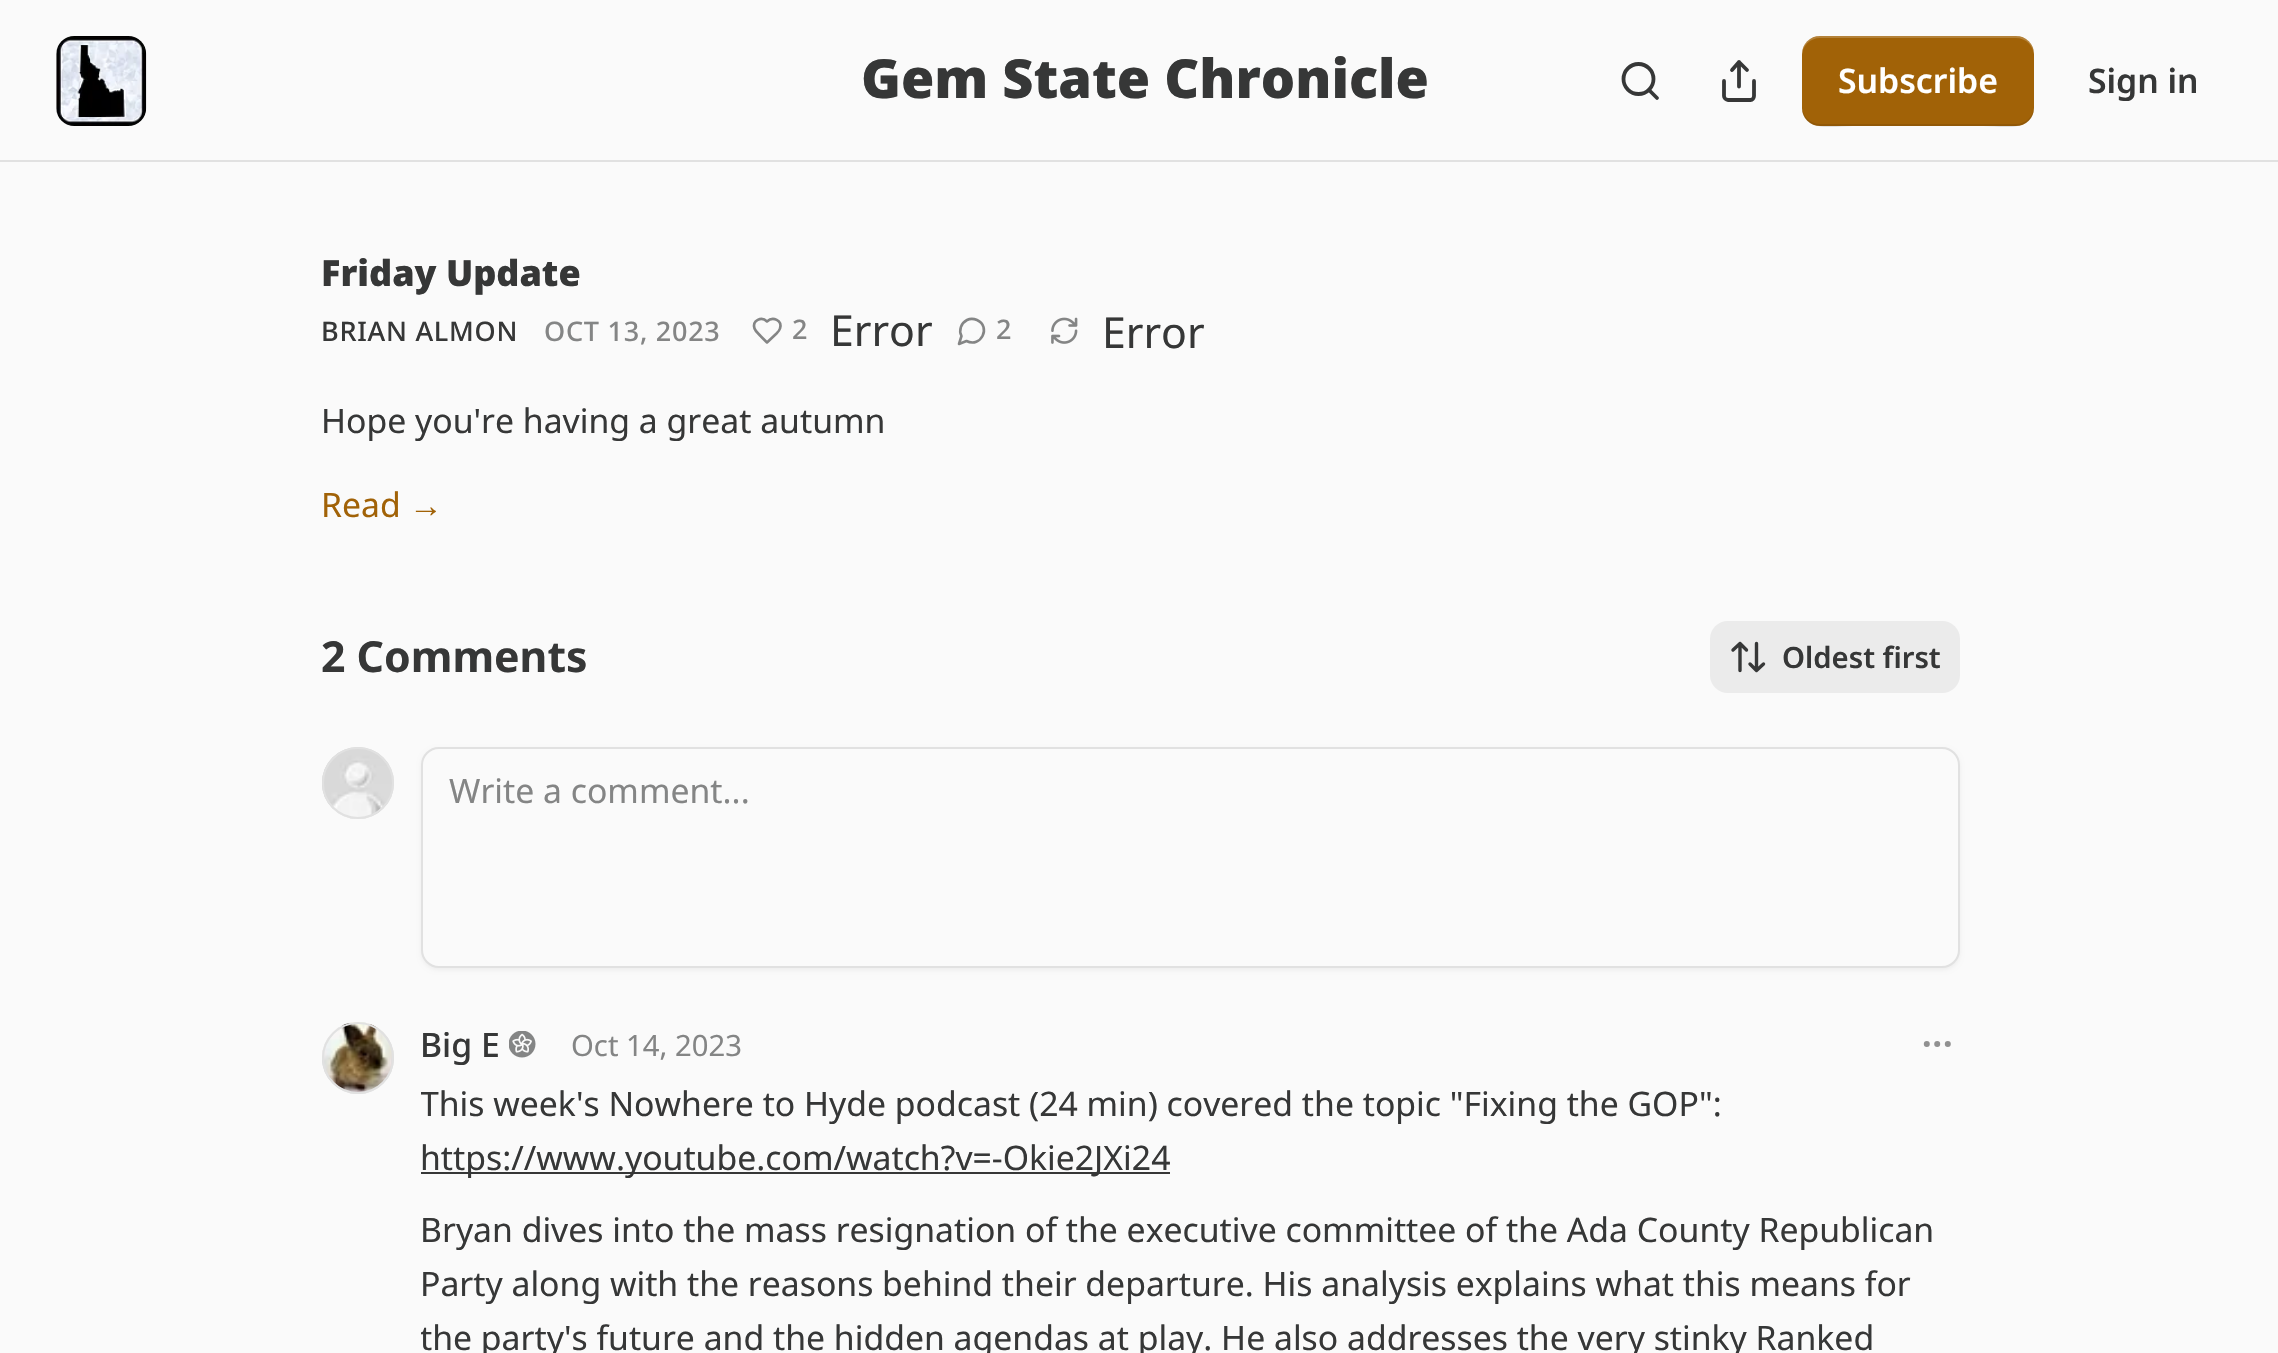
void draw(SkCanvas* canvas) {
	SkPaint fill;
	fill.setAntiAlias(true);
	auto makeFont = [&](const char* family, int weight, float size, bool italic = false) {
		SkFontStyle style(weight, SkFontStyle::kNormal_Width,
			italic ? SkFontStyle::kItalic_Slant : SkFontStyle::kUpright_Slant);
		SkFont result(fontMgr->matchFamilyStyle(family, style), size);
		result.setSubpixel(true);
		return result;
	};
	auto text = [&](const char* s, float x, float y, const SkFont& font) {
		canvas->drawString(s, x, y, font, fill);
	};
	auto spacedText = [&](const char* s, float x, float y, const SkFont& font, const SkPaint& ink, float letter, float word) {
		std::vector<SkGlyphID> glyphs(font.countText(s, strlen(s), SkTextEncoding::kUTF8));
		std::vector<float> xs(glyphs.size());
		font.textToGlyphs(s, strlen(s), SkTextEncoding::kUTF8, glyphs);
		font.getXPos(glyphs, xs, x);
		float extra = 0;
		for (size_t i = 0; i < glyphs.size(); i++) {
			xs[i] += extra;
			extra += letter + word * (glyphs[i] == font.unicharToGlyph(' '));
		}
		canvas->drawTextBlob(SkTextBlob::MakeFromPosHGlyphs(glyphs, xs, y, font), 0, 0, ink);
	};
	auto box = [&](float l, float t, float r, float b) {
		canvas->drawRect(SkRect::MakeLTRB(l, t, r, b), fill);
	};
	auto roundBox = [&](float l, float t, float r, float b, float radius) {
		canvas->drawRoundRect(SkRect::MakeLTRB(l, t, r, b), radius, radius, fill);
	};
	auto picture = [&](const char* path, float l, float t, float r, float b) {
		auto image = SkImages::DeferredFromEncodedData(SkData::MakeFromFileName(path));
		canvas->drawImageRect(image, SkRect::MakeLTRB(l, t, r, b), SkSamplingOptions());
	};
	canvas->clear(0xFFFAFAFA);
	fill.setColor(0xFFE1E1E1);
	box(0, 160, 2278, 162);
	fill.setColor(0xFFFFFFFF);
	roundBox(56, 36, 146, 126, 18);
	picture("image0.png", 56, 36, 147, 126);
	fill.setStyle(SkPaint::kStroke_Style);
	fill.setStrokeWidth(3.8f);
	fill.setColor(0xFF363737);
	canvas->drawCircle(1638.5f, 79, 15, fill);
	fill.setStrokeCap(SkPaint::kRound_Cap);
	fill.setStrokeJoin(SkPaint::kRound_Join);
	canvas->drawPath(SkPathBuilder().moveTo(1657, 98).lineTo(1649, 90).detach(), fill);
	canvas->drawPath(SkPathBuilder().moveTo(1724, 81).lineTo(1724, 96).cubicTo(1724, 98, 1726, 100, 1728, 100).lineTo(1750.5f, 100).cubicTo(1752.5f, 100, 1754, 98, 1754, 96).lineTo(1754, 81).moveTo(1747, 70).lineTo(1739, 62).lineTo(1732, 70).moveTo(1739, 62).lineTo(1739, 86.5f).detach(), fill);
	fill.setStyle(SkPaint::kFill_Style);
	fill.setColor(0xFFA16207);
	roundBox(1802, 36, 2034, 126, 18);
	fill.setColor(0x1A000000);
	canvas->drawPath(SkPathBuilder().moveTo(1802, 106).cubicTo(1802, 134, 1835, 126, 1853, 126).lineTo(1983, 126).cubicTo(2001, 126, 2034, 134, 2034, 106).cubicTo(2034, 116, 2026, 124, 2016, 124).lineTo(1820, 124).cubicTo(1810, 124, 1802, 116, 1802, 106).close().detach(), fill);
	fill.setColor(0x33FFFFFF);
	canvas->drawPath(SkPathBuilder().moveTo(1820, 38).lineTo(2016, 38).cubicTo(2026, 38, 2034, 46, 2034, 56).cubicTo(2034, 28, 2001, 36, 1983, 36).lineTo(1853, 36).cubicTo(1835, 36, 1802, 28, 1802, 56).cubicTo(1802, 46, 1810, 38, 1820, 38).close().detach(), fill);
	fill.setStyle(SkPaint::kStroke_Style);
	fill.setStrokeWidth(2.6f);
	fill.setColor(0xFF848585);
	canvas->drawPath(SkPathBuilder().moveTo(776.5f, 333.5f).cubicTo(778, 332, 779.5f, 330.5f, 780, 328.5f).cubicTo(782.5f, 320.5f, 773, 316, 767, 321.5f).cubicTo(761.5f, 316, 752, 320.5f, 754.5f, 328.5f).cubicTo(755.5f, 331.5f, 759, 334, 761, 336.5f).lineTo(767, 342.5f).close().detach(), fill);
	canvas->drawPath(SkPathBuilder().moveTo(966.5f, 341).cubicTo(981, 348.5f, 991.5f, 326.5f, 977, 320).cubicTo(973.5f, 318.5f, 970, 318.5f, 967, 320).cubicTo(961, 323, 958.5f, 330.5f, 961.5f, 336).lineTo(959, 344).close().detach(), fill);
	picture("image1.png", 1051, 317, 1078, 344);
	fill.setStyle(SkPaint::kFill_Style);
	fill.setColor(0xFFEBEBEB);
	roundBox(1710, 621, 1960, 693, 18);
	fill.setStyle(SkPaint::kStroke_Style);
	fill.setStrokeWidth(3.4f);
	fill.setColor(0xFF363737);
	canvas->drawPath(SkPathBuilder().moveTo(1763.5f, 664).lineTo(1756.5f, 670.5f).lineTo(1750, 664).moveTo(1756.5f, 670.5f).lineTo(1756.5f, 643.5f).moveTo(1733, 650).lineTo(1740, 643.5f).lineTo(1746.5f, 650).moveTo(1740, 643.5f).lineTo(1740, 670.5f).detach(), fill);
	fill.setStrokeWidth(2);
	fill.setStrokeCap(SkPaint::kButt_Cap);
	fill.setStrokeJoin(SkPaint::kMiter_Join);
	fill.setColor(0xFFE1E1E1);
	canvas->drawCircle(358, 783, 35, fill);
	picture("image2.png", 322, 747, 394, 819);
	canvas->drawCircle(358, 783, 35, fill);
	fill.setStyle(SkPaint::kFill_Style);
	fill.setColor(0x0D000000);
	fill.setMaskFilter(SkMaskFilter::MakeBlur(kNormal_SkBlurStyle, 2));
	canvas->drawRoundRect(SkRect::MakeLTRB(421, 749, 1960, 970), 18, 18, fill);
	fill.setMaskFilter(nullptr);
	fill.setColor(0xFFFAFAFA);
	canvas->drawRoundRect(SkRect::MakeLTRB(422, 748, 1959, 967), 17, 17, fill);
	fill.setStyle(SkPaint::kStroke_Style);
	fill.setColor(0xFFE1E1E1);
	canvas->drawRoundRect(SkRect::MakeLTRB(422, 748, 1959, 967), 17, 17, fill);
	canvas->drawCircle(358, 1058, 35, fill);
	picture("image3.png", 322, 1022, 394, 1094);
	canvas->drawCircle(358, 1058, 35, fill);
	picture("image4.png", 509, 1031, 536, 1058);
	fill.setStrokeWidth(3);
	fill.setColor(0xFF909090);
	canvas->drawCircle(1937.2f, 1044, 1.5f, fill);
	canvas->drawCircle(1947.8f, 1044, 1.5f, fill);
	canvas->drawCircle(1926.8f, 1044, 1.5f, fill);
	fill.setStyle(SkPaint::kFill_Style);
	fill.setColor(0xFF363737);
	box(421, 1172, 1170, 1174);
	auto font1 = makeFont("Noto Sans", 900, 54);
	text("Gem State Chronicle", 861, 98, font1);
	auto font2 = makeFont("Noto Sans", 600, 33.75f);
	fill.setColor(0xFFFFFFFF);
	text("Subscribe", 1838, 93, font2);
	fill.setColor(0xFF363737);
	text("Sign in", 2088, 93, font2);
	auto font3 = makeFont("Noto Sans", 900, 36);
	text("Friday Update", 321, 286, font3);
	auto font4 = makeFont("Noto Sans", 500, 27);
	spacedText("BRIAN ALMON", 321, 341, font4, fill, 0.75f, 0);
	fill.setColor(0xFF848585);
	spacedText("OCT 13, 2023", 544, 341, font4, fill, 0.75f, 0);
	spacedText("2", 792, 339, font4, fill, 0.75f, 0);
	auto font5 = makeFont("Noto Sans", 400, 42.75f);
	fill.setColor(0xFF363737);
	text("Error", 830, 346, font5);
	fill.setColor(0xFF848585);
	spacedText("2", 996, 339, font4, fill, 0.75f, 0);
	fill.setColor(0xFF363737);
	text("Error", 1102, 348, font5);
	auto font6 = makeFont("Noto Sans", 400, 33.75f);
	text("Hope you're having a great autumn", 321, 433, font6);
	fill.setColor(0xFFA16207);
	text("Read", 321, 517, font6);
	auto font7 = makeFont("Liberation Sans", 400, 33.75f);
	text("→", 409, 517, font7);
	auto font8 = makeFont("Noto Sans", 700, 42.75f);
	fill.setColor(0xFF363737);
	text("2 Comments", 321, 672, font8);
	auto font9 = makeFont("Noto Sans", 600, 29.25f);
	text("Oldest first", 1782, 668, font9);
	fill.setColor(0xFF848585);
	text("Write a comment...", 449, 803, font6);
	auto font10 = makeFont("Noto Sans", 500, 33.75f);
	fill.setColor(0xFF363737);
	text("Big E", 420, 1057, font10);
	auto font11 = makeFont("Noto Sans", 400, 29.25f);
	fill.setColor(0xFF848585);
	text("Oct 14, 2023", 571, 1056, font11);
	canvas->save();
	canvas->clipRect(SkRect::MakeLTRB(421, 1076, 1960, 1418));
	fill.setColor(0xFF363737);
	text("This week's Nowhere to Hyde podcast (24 min) covered the topic \"Fixing the GOP\":", 420, 1116, font6);
	canvas->restore();
	text("https://www.youtube.com/watch?v=-Okie2JXi24", 420, 1170, font6);
	text("Bryan dives into the mass resignation of the executive committee of the Ada County Republican", 420, 1242, font6);
	text("Party along with the reasons behind their departure. His analysis explains what this means for", 420, 1296, font6);
	canvas->save();
	canvas->clipRect(SkRect::MakeLTRB(421, 1076, 1960, 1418));
	text("the party's future and the hidden agendas at play. He also addresses the very stinky Ranked", 420, 1350, font6);
	canvas->restore();
}
